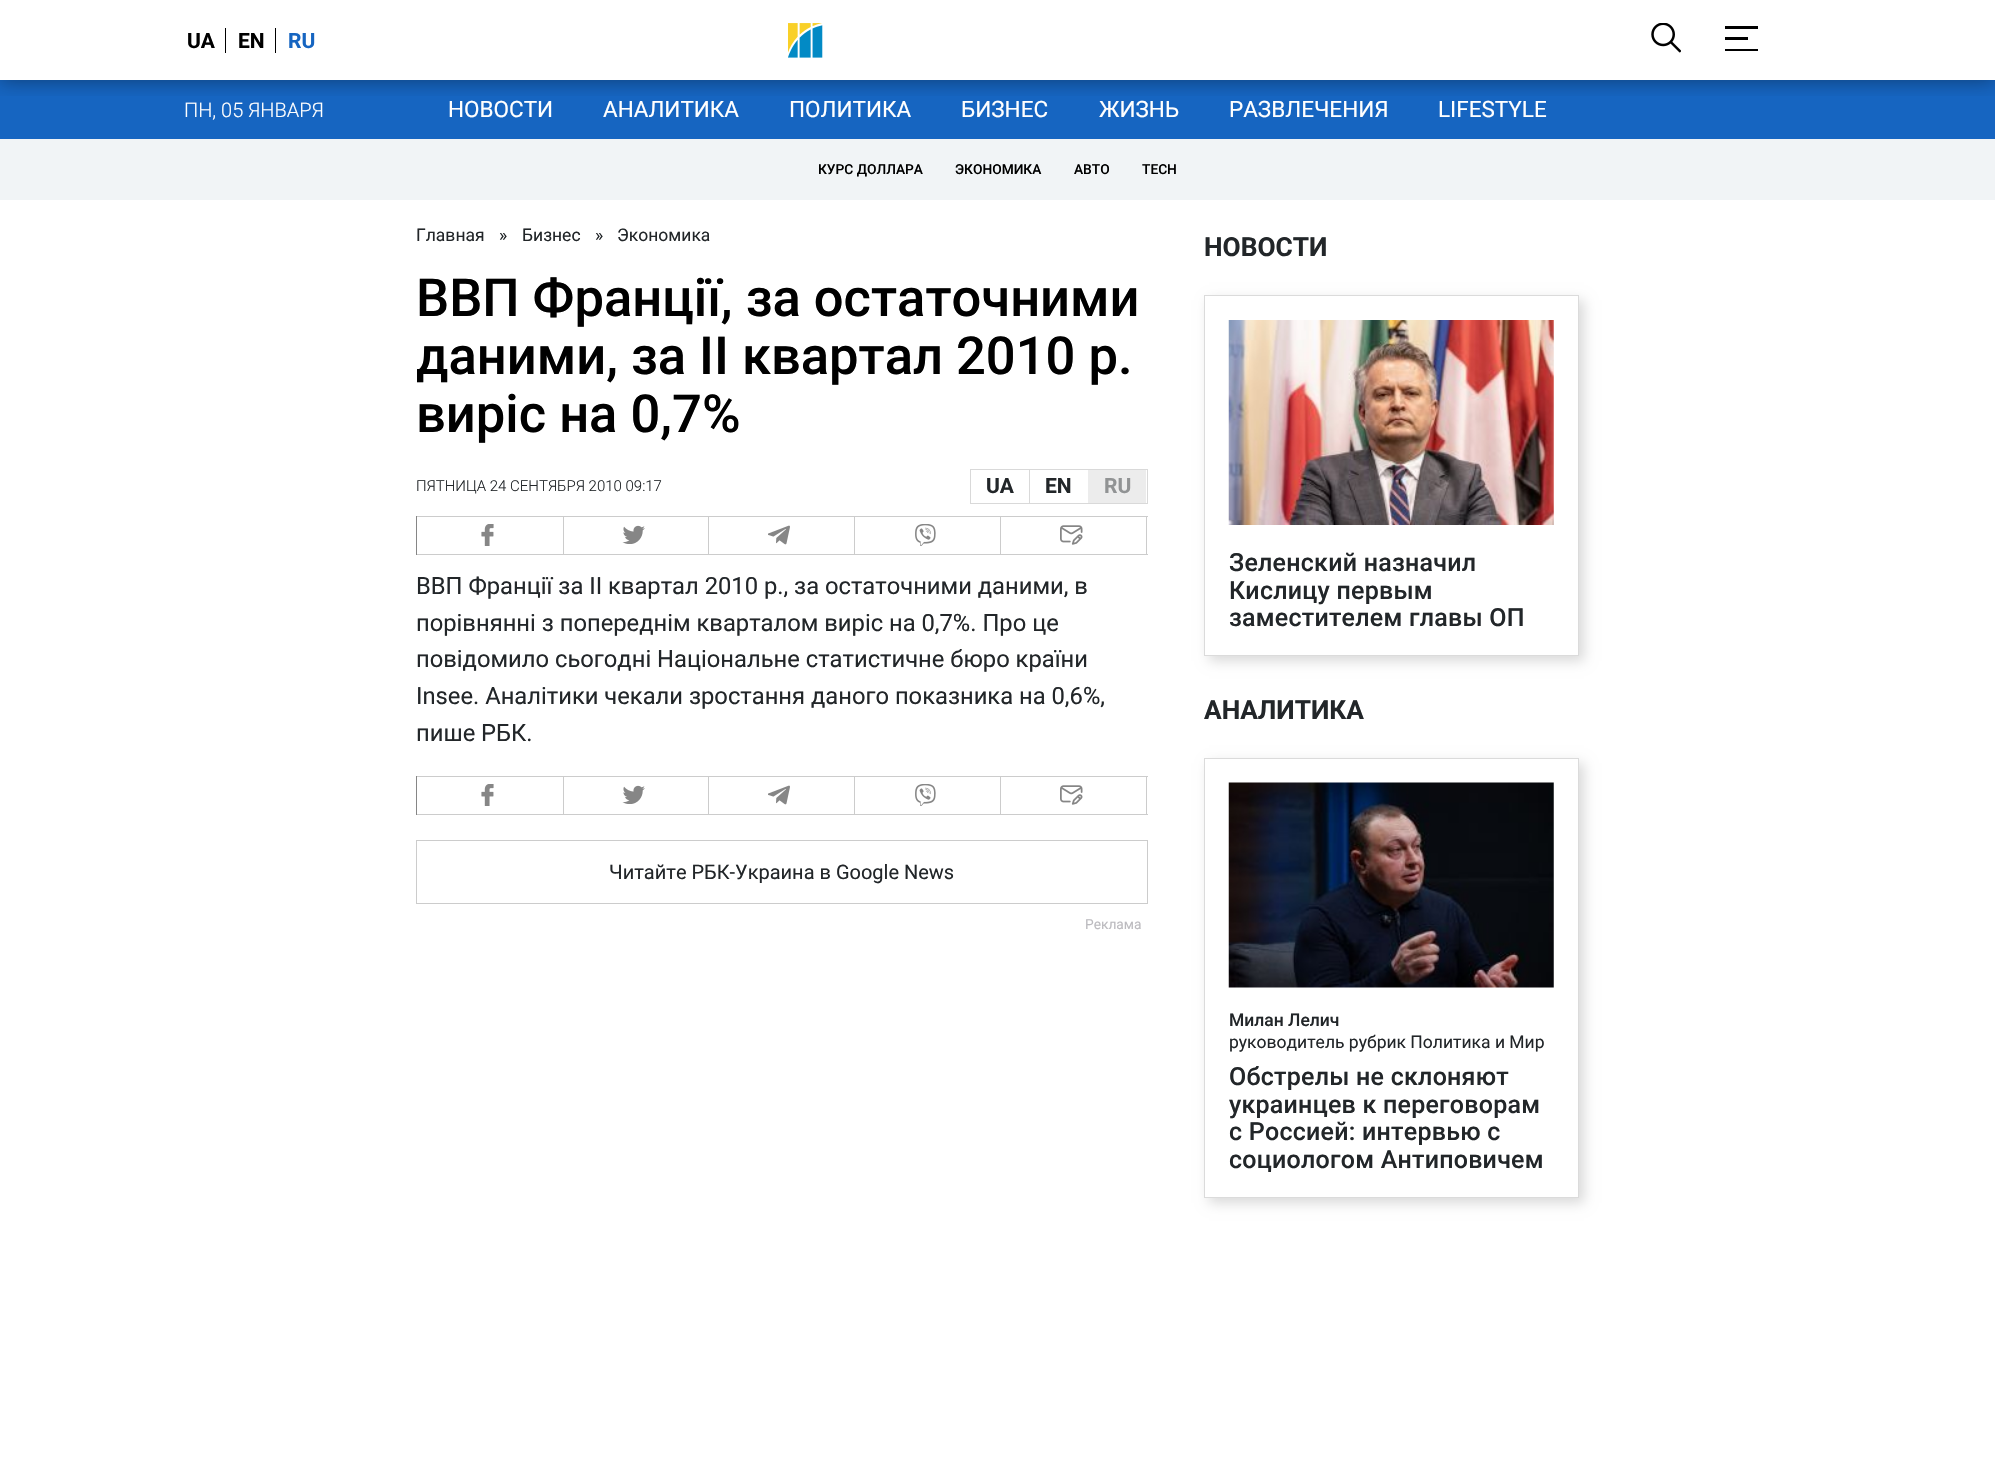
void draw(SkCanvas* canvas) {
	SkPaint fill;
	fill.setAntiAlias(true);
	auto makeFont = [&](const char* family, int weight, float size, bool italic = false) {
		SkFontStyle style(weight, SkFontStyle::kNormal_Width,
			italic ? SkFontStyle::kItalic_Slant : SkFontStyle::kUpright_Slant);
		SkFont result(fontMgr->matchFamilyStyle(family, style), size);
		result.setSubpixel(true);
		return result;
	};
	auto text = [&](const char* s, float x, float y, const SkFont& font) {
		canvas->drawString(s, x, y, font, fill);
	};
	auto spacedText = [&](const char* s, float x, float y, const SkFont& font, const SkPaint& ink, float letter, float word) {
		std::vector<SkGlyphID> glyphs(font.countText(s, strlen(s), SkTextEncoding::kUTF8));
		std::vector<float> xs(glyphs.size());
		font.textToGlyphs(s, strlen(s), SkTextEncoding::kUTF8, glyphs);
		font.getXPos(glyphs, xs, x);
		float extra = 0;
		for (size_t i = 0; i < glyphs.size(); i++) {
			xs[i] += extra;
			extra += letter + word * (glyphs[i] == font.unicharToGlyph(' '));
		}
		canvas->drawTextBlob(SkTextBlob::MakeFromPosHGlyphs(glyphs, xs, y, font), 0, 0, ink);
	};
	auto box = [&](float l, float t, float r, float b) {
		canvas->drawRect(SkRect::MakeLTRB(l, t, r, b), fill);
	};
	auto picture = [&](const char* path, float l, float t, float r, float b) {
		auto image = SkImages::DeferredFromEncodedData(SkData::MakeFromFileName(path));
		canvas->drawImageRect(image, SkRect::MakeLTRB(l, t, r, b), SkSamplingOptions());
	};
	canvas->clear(0xFFFFFFFF);
	fill.setColor(0xFF1665C1);
	box(0, 80, 1995, 139);
	canvas->save();
	canvas->clipRect(SkRect::MakeLTRB(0, 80, 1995, 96));
	fill.setColor(0x61000000);
	fill.setMaskFilter(SkMaskFilter::MakeBlur(kNormal_SkBlurStyle, 9.5f));
	canvas->drawRect(SkRect::MakeLTRB(0, 1, 1995, 81), fill);
	fill.setMaskFilter(nullptr);
	canvas->restore();
	fill.setColor(0xFF000000);
	box(225, 28, 226, 53);
	box(275, 28, 276, 53);
	picture("image0.png", 788, 23, 823, 58);
	picture("image1.png", 1651, 23, 1681, 53);
	box(1725, 26, 1758, 29);
	box(1725, 37, 1748, 40);
	box(1725, 49, 1758, 51);
	fill.setColor(0xFFF1F4F6);
	box(0, 139, 1995, 200);
	fill.setStyle(SkPaint::kStroke_Style);
	fill.setStrokeWidth(1);
	fill.setColor(0xFFD9D9D9);
	canvas->drawRect(SkRect::MakeLTRB(970.5f, 469.5f, 1147.5f, 503.5f), fill);
	fill.setStyle(SkPaint::kFill_Style);
	box(1029, 470, 1030, 503);
	fill.setColor(0xFFECECEC);
	box(1088, 470, 1146, 503);
	fill.setColor(0xFFCCCCCC);
	box(416, 516, 1148, 517);
	box(563, 516, 564, 555);
	box(416, 554, 564, 555);
	fill.setColor(0xFF868686);
	box(416, 516, 417, 555);
	picture("image2.png", 481, 524, 494, 546);
	fill.setColor(0xFFCCCCCC);
	box(708, 516, 709, 555);
	box(564, 554, 709, 555);
	picture("image3.png", 622, 525, 645, 544);
	box(854, 516, 855, 555);
	box(709, 554, 855, 555);
	picture("image4.png", 768, 525, 790, 545);
	box(1000, 516, 1001, 555);
	box(855, 554, 1001, 555);
	picture("image5.png", 915, 524, 936, 546);
	box(1146, 516, 1147, 555);
	box(1001, 554, 1148, 555);
	picture("image6.png", 1060, 525, 1083, 545);
	box(416, 776, 1148, 777);
	box(563, 776, 564, 815);
	box(416, 814, 564, 815);
	fill.setColor(0xFF868686);
	box(416, 776, 417, 815);
	picture("image2.png", 481, 784, 494, 806);
	fill.setColor(0xFFCCCCCC);
	box(708, 776, 709, 815);
	box(564, 814, 709, 815);
	picture("image3.png", 622, 785, 645, 804);
	box(854, 776, 855, 815);
	box(709, 814, 855, 815);
	picture("image4.png", 768, 785, 790, 805);
	box(1000, 776, 1001, 815);
	box(855, 814, 1001, 815);
	picture("image5.png", 915, 784, 936, 806);
	box(1146, 776, 1147, 815);
	box(1001, 814, 1148, 815);
	picture("image6.png", 1060, 785, 1083, 805);
	fill.setStyle(SkPaint::kStroke_Style);
	canvas->drawRect(SkRect::MakeLTRB(416.5f, 840.5f, 1147.5f, 903.5f), fill);
	canvas->save();
	canvas->clipPath(SkPathBuilder(SkPathFillType::kEvenOdd).moveTo(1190, 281).lineTo(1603, 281).lineTo(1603, 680).lineTo(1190, 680).close().moveTo(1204, 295).lineTo(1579, 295).lineTo(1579, 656).lineTo(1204, 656).close().detach(), true);
	fill.setStyle(SkPaint::kFill_Style);
	fill.setColor(0x26000000);
	fill.setMaskFilter(SkMaskFilter::MakeBlur(kNormal_SkBlurStyle, 6));
	canvas->drawRect(SkRect::MakeLTRB(1209, 300, 1584, 661), fill);
	fill.setMaskFilter(nullptr);
	canvas->restore();
	fill.setStyle(SkPaint::kStroke_Style);
	fill.setColor(0xFFDBDBDB);
	canvas->drawRect(SkRect::MakeLTRB(1204.5f, 295.5f, 1578.5f, 655.5f), fill);
	picture("image7.png", 1228, 320, 1554, 525);
	canvas->save();
	canvas->clipPath(SkPathBuilder(SkPathFillType::kEvenOdd).moveTo(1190, 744).lineTo(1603, 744).lineTo(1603, 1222).lineTo(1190, 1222).close().moveTo(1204, 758).lineTo(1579, 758).lineTo(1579, 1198).lineTo(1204, 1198).close().detach(), true);
	fill.setStyle(SkPaint::kFill_Style);
	fill.setColor(0x26000000);
	fill.setMaskFilter(SkMaskFilter::MakeBlur(kNormal_SkBlurStyle, 6));
	canvas->drawRect(SkRect::MakeLTRB(1209, 763, 1584, 1203), fill);
	fill.setMaskFilter(nullptr);
	canvas->restore();
	fill.setStyle(SkPaint::kStroke_Style);
	fill.setColor(0xFFDBDBDB);
	canvas->drawRect(SkRect::MakeLTRB(1204.5f, 758.5f, 1578.5f, 1197.5f), fill);
	picture("image8.png", 1228, 782, 1554, 988);
	auto font1 = makeFont("Roboto", 700, 21);
	fill.setStyle(SkPaint::kFill_Style);
	fill.setColor(0xFF000000);
	text("UA", 187, 48, font1);
	text("EN", 238, 48, font1);
	fill.setColor(0xFF1665C1);
	text("RU", 288, 48, font1);
	auto font2 = makeFont("Roboto", 300, 20);
	fill.setColor(0xFFFFFFFF);
	text("ПН, 05 ЯНВАРЯ", 184, 117, font2);
	auto font3 = makeFont("Roboto", 400, 22.5f);
	text("НОВОСТИ", 448, 117, font3);
	text("АНАЛИТИКА", 603, 117, font3);
	text("ПОЛИТИКА", 789, 117, font3);
	text("БИЗНЕС", 961, 117, font3);
	text("ЖИЗНЬ", 1099, 117, font3);
	text("РАЗВЛЕЧЕНИЯ", 1229, 117, font3);
	text("LIFESTYLE", 1438, 117, font3);
	auto font4 = makeFont("Roboto", 500, 13.75f);
	fill.setColor(0xFF000000);
	text("КУРС ДОЛЛАРА", 818, 174, font4);
	text("ЭКОНОМИКА", 955, 174, font4);
	text("АВТО", 1074, 174, font4);
	text("TECH", 1142, 174, font4);
	auto font5 = makeFont("Roboto", 400, 17.5f);
	fill.setColor(0xFF222629);
	text("Главная", 416, 241, font5);
	text("»", 499, 241, font5);
	text("Бизнес", 522, 241, font5);
	text("»", 595, 241, font5);
	text("Экономика", 617, 241, font5);
	auto font6 = makeFont("Roboto", 500, 52.5f);
	fill.setColor(0xFF000000);
	text("ВВП Франції, за остаточними", 416, 316, font6);
	text("даними, за II квартал 2010 р.", 416, 374, font6);
	text("виріс на 0,7%", 416, 432, font6);
	auto font7 = makeFont("Roboto", 300, 15);
	fill.setColor(0xFF222629);
	text("ПЯТНИЦА 24 СЕНТЯБРЯ 2010 09:17", 416, 491, font7);
	text("UA", 986, 493, font1);
	text("EN", 1045, 493, font1);
	fill.setColor(0xFF919394);
	text("RU", 1104, 493, font1);
	auto font8 = makeFont("Roboto", 400, 23.75f);
	fill.setColor(0xFF222629);
	text("ВВП Франції за II квартал 2010 р., за остаточними даними, в", 416, 594, font8);
	text("порівнянні з попереднім кварталом виріс на 0,7%. Про це", 416, 631, font8);
	text("повідомило сьогодні Національне статистичне бюро країни", 416, 667, font8);
	text("Insee. Аналітики чекали зростання даного показника на 0,6%,", 416, 704, font8);
	text("пише РБК.", 416, 741, font8);
	auto font9 = makeFont("Roboto", 400, 20);
	text("Читайте РБК-Украина в Google News", 609, 879, font9);
	auto font10 = makeFont("Roboto", 400, 13.75f);
	fill.setColor(0xFFBCBBBF);
	text("Реклама", 1085, 929, font10);
	auto font11 = makeFont("Roboto", 700, 26.25f);
	fill.setColor(0xFF222629);
	text("НОВОСТИ", 1204, 256, font11);
	auto font12 = makeFont("Roboto", 500, 25);
	spacedText("Зеленский назначил", 1229, 571, font12, fill, 0.25f, 0);
	spacedText("Кислицу первым", 1229, 599, font12, fill, 0.25f, 0);
	spacedText("заместителем главы ОП", 1229, 626, font12, fill, 0.25f, 0);
	text("АНАЛИТИКА", 1204, 719, font11);
	auto font13 = makeFont("Roboto", 500, 17.5f);
	text("Милан Лелич", 1229, 1026, font13);
	text("руководитель рубрик Политика и Мир", 1229, 1048, font5);
	spacedText("Обстрелы не склоняют", 1229, 1085, font12, fill, 0.25f, 0);
	spacedText("украинцев к переговорам", 1229, 1113, font12, fill, 0.25f, 0);
	spacedText("с Россией: интервью с", 1229, 1140, font12, fill, 0.25f, 0);
	spacedText("социологом Антиповичем", 1229, 1168, font12, fill, 0.25f, 0);
}
